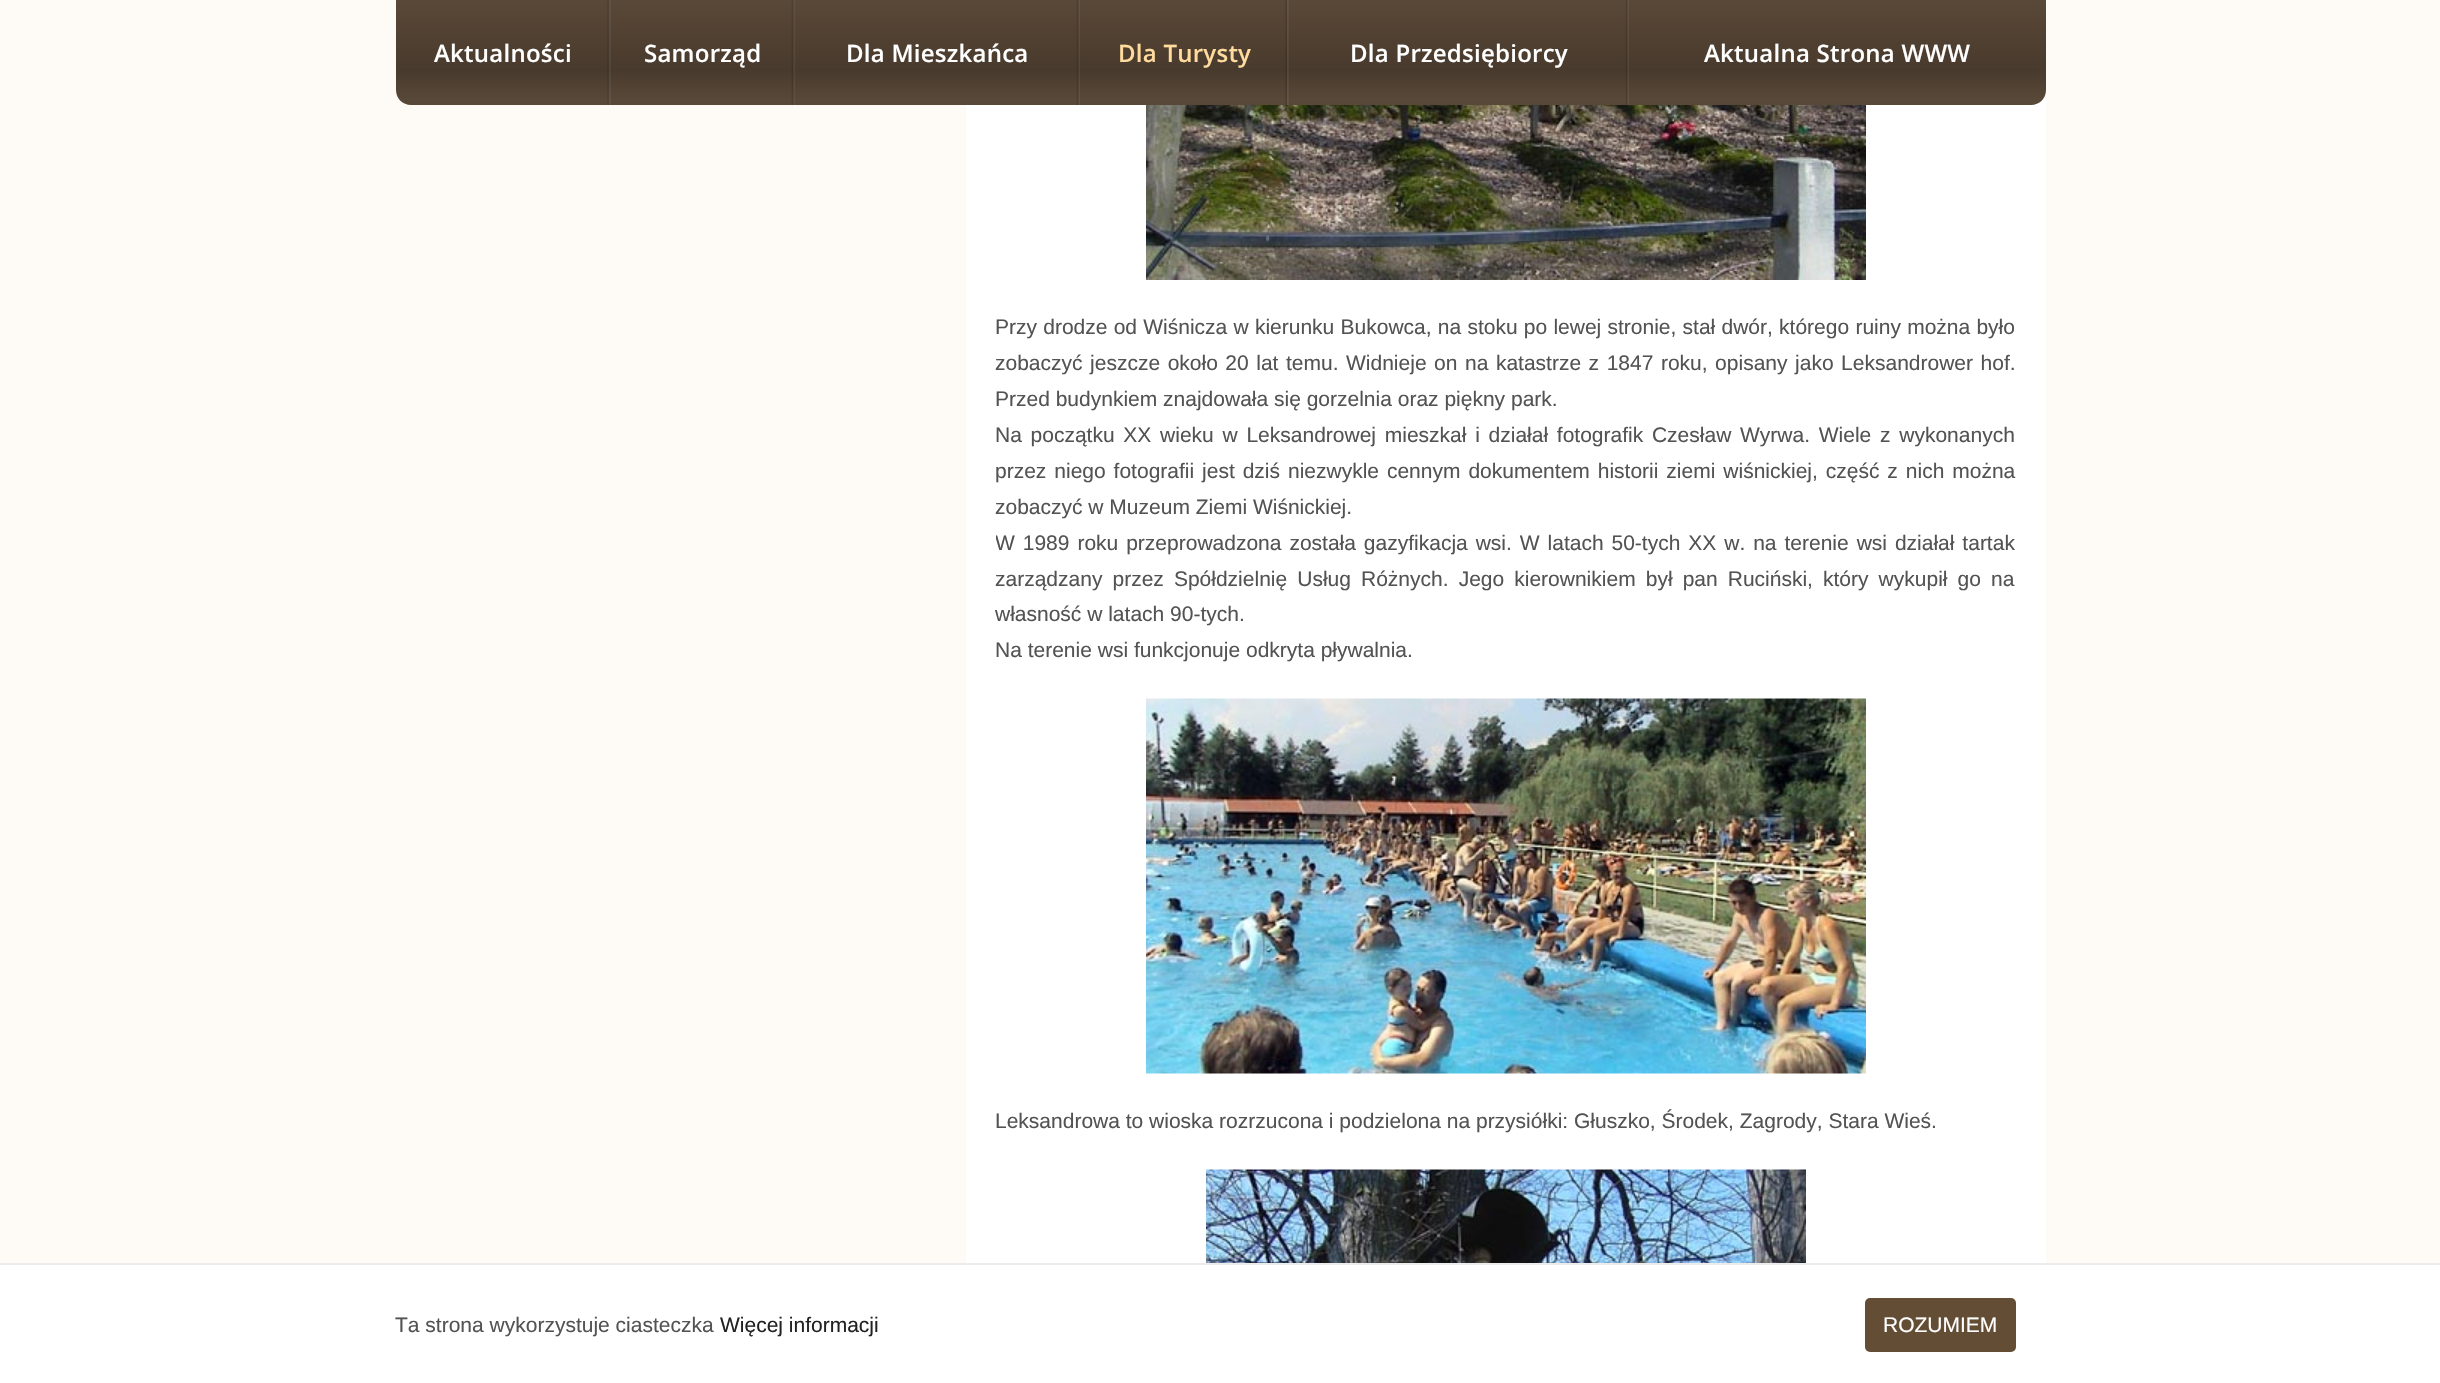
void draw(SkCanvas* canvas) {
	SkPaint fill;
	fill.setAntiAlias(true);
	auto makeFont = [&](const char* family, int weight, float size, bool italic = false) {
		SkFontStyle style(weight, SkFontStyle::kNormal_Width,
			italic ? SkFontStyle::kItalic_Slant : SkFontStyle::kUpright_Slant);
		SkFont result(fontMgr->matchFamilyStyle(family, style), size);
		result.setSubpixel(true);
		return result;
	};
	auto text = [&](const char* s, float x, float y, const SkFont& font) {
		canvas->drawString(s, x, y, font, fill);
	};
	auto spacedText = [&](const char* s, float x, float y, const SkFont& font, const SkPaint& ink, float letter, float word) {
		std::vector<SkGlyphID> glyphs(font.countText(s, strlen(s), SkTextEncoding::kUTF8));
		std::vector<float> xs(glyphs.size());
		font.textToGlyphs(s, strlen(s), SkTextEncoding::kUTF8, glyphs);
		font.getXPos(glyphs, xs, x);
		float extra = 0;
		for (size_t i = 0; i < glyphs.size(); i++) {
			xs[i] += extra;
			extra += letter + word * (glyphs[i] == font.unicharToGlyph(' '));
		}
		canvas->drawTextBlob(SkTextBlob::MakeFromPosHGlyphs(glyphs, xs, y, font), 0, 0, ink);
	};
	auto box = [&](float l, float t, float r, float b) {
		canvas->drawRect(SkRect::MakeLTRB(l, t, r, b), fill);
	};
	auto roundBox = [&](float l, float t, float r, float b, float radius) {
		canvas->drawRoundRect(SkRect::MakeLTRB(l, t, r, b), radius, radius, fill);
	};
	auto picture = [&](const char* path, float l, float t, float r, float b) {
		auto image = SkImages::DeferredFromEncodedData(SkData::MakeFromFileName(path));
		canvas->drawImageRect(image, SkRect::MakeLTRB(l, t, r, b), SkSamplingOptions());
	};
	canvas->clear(0xFFFEFBF6);
	{
		const SkColor colors[] = {0xFF594938, 0xFF554434, 0xFF483A2D, 0xFF584838};
		const float stops[] = {0, 0.2f, 0.67f, 0.95f};
		const SkPoint ends[] = {{503, 0}, {503, 105}};
		fill.setShader(SkGradientShader::MakeLinear(ends, colors, stops, 4, SkTileMode::kClamp));
		fill.setAlpha(255);
	}
	canvas->drawPath(SkPathBuilder().moveTo(396, 0).lineTo(611, 0).lineTo(611, 105).lineTo(411, 105).cubicTo(402.5f, 105, 396, 98.5f, 396, 90).close().detach(), fill);
	picture("image0.png", 607, 0, 611, 105);
	{
		const SkColor colors[] = {0xFF594938, 0xFF554434, 0xFF483A2D, 0xFF584838};
		const float stops[] = {0, 0.2f, 0.67f, 0.95f};
		const SkPoint ends[] = {{703, 0}, {703, 105}};
		fill.setShader(SkGradientShader::MakeLinear(ends, colors, stops, 4, SkTileMode::kClamp));
		fill.setAlpha(255);
	}
	box(611, 0, 795, 105);
	picture("image1.png", 791, 0, 795, 105);
	fill.setShader(nullptr);
	fill.setColor(0xFFFFFFFF);
	box(966, 90, 2046, 1263);
	{
		const SkColor colors[] = {0xFF594938, 0xFF554434, 0xFF483A2D, 0xFF584838};
		const float stops[] = {0, 0.2f, 0.67f, 0.95f};
		const SkPoint ends[] = {{938, 0}, {938, 105}};
		fill.setShader(SkGradientShader::MakeLinear(ends, colors, stops, 4, SkTileMode::kClamp));
		fill.setAlpha(255);
	}
	box(795, 0, 1080, 105);
	picture("image1.png", 1076, 0, 1080, 105);
	{
		const SkColor colors[] = {0xFF594938, 0xFF554434, 0xFF483A2D, 0xFF584838};
		const float stops[] = {0, 0.2f, 0.67f, 0.95f};
		const SkPoint ends[] = {{1184, 0}, {1184, 105}};
		fill.setShader(SkGradientShader::MakeLinear(ends, colors, stops, 4, SkTileMode::kClamp));
		fill.setAlpha(255);
	}
	box(1080, 0, 1289, 105);
	picture("image2.png", 1285, 0, 1289, 105);
	{
		const SkColor colors[] = {0xFF594938, 0xFF554434, 0xFF483A2D, 0xFF584838};
		const float stops[] = {0, 0.2f, 0.67f, 0.95f};
		const SkPoint ends[] = {{1459, 0}, {1459, 105}};
		fill.setShader(SkGradientShader::MakeLinear(ends, colors, stops, 4, SkTileMode::kClamp));
		fill.setAlpha(255);
	}
	box(1289, 0, 1629, 105);
	picture("image1.png", 1625, 0, 1629, 105);
	{
		const SkColor colors[] = {0xFF594938, 0xFF554434, 0xFF483A2D, 0xFF584838};
		const float stops[] = {0, 0.2f, 0.67f, 0.95f};
		const SkPoint ends[] = {{1838, 0}, {1838, 105}};
		fill.setShader(SkGradientShader::MakeLinear(ends, colors, stops, 4, SkTileMode::kClamp));
		fill.setAlpha(255);
	}
	canvas->drawPath(SkPathBuilder().moveTo(1629, 0).lineTo(2046, 0).lineTo(2046, 90).cubicTo(2046, 98.5f, 2039.5f, 105, 2031, 105).lineTo(1629, 105).close().detach(), fill);
	picture("image3.png", 1146, 105, 1866, 280);
	picture("image4.png", 1146, 698, 1866, 1074);
	picture("image5.png", 1206, 1169, 1806, 1263);
	fill.setShader(nullptr);
	fill.setColor(0xFFFFFFFF);
	box(0, 1265, 2440, 1383);
	fill.setColor(0xFFECECEC);
	box(0, 1263, 2440, 1265);
	fill.setColor(0xFF634D34);
	roundBox(1865, 1298, 2016, 1352, 5);
	auto font1 = makeFont("Open Sans", 600, 24);
	fill.setColor(0xFFFFFFFF);
	spacedText("Aktualności", 434, 62, font1, fill, 0.25f, 0);
	spacedText("Samorząd", 644, 62, font1, fill, 0.25f, 0);
	spacedText("Dla Mieszkańca", 846, 62, font1, fill, 0.25f, 0);
	fill.setColor(0xFFFFDB9D);
	spacedText("Dla Turysty", 1118, 62, font1, fill, 0.25f, 0);
	fill.setColor(0xFFFFFFFF);
	spacedText("Dla Przedsiębiorcy", 1350, 62, font1, fill, 0.25f, 0);
	spacedText("Aktualna Strona WWW", 1704, 62, font1, fill, 0.25f, 0);
	auto font2 = makeFont("Liberation Sans", 400, 21);
	fill.setColor(0xFF535353);
	spacedText("Przy drodze od Wiśnicza w kierunku Bukowca, na stoku po lewej stronie, stał dwór, którego ruiny można było", 995, 334, font2, fill, 0, 0.4f);
	spacedText("zobaczyć jeszcze około 20 lat temu. Widnieje on na katastrze z 1847 roku, opisany jako Leksandrower hof.", 995, 370, font2, fill, 0, 1.7f);
	text("Przed budynkiem znajdowała się gorzelnia oraz piękny park.", 995, 406, font2);
	spacedText("Na początku XX wieku w Leksandrowej mieszkał i działał fotografik Czesław Wyrwa. Wiele z wykonanych", 995, 442, font2, fill, 0, 2.9f);
	spacedText("przez niego fotografii jest dziś niezwykle cennym dokumentem historii ziemi wiśnickiej, część z nich można", 995, 478, font2, fill, 0, 2.1f);
	text("zobaczyć w Muzeum Ziemi Wiśnickiej.", 995, 514, font2);
	canvas->save();
	canvas->clipRect(SkRect::MakeLTRB(996, 0, 2016, 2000));
	spacedText("W 1989 roku przeprowadzona została gazyfikacja wsi. W latach 50-tych XX w. na terenie wsi działał tartak", 995, 550, font2, fill, 0, 2.1f);
	canvas->restore();
	spacedText("zarządzany przez Spółdzielnię Usług Różnych. Jego kierownikiem był pan Ruciński, który wykupił go na", 995, 586, font2, fill, 0, 4.25f);
	text("własność w latach 90-tych.", 995, 621, font2);
	text("Na terenie wsi funkcjonuje odkryta pływalnia.", 995, 657, font2);
	text("Leksandrowa to wioska rozrzucona i podzielona na przysiółki: Głuszko, Środek, Zagrody, Stara Wieś.", 995, 1128, font2);
	text("Ta strona wykorzystuje ciasteczka", 395, 1332, font2);
	fill.setColor(0xFF222222);
	text("Więcej informacji", 720, 1332, font2);
	fill.setColor(0xFFFFFFFF);
	text("ROZUMIEM", 1883, 1332, font2);
}
